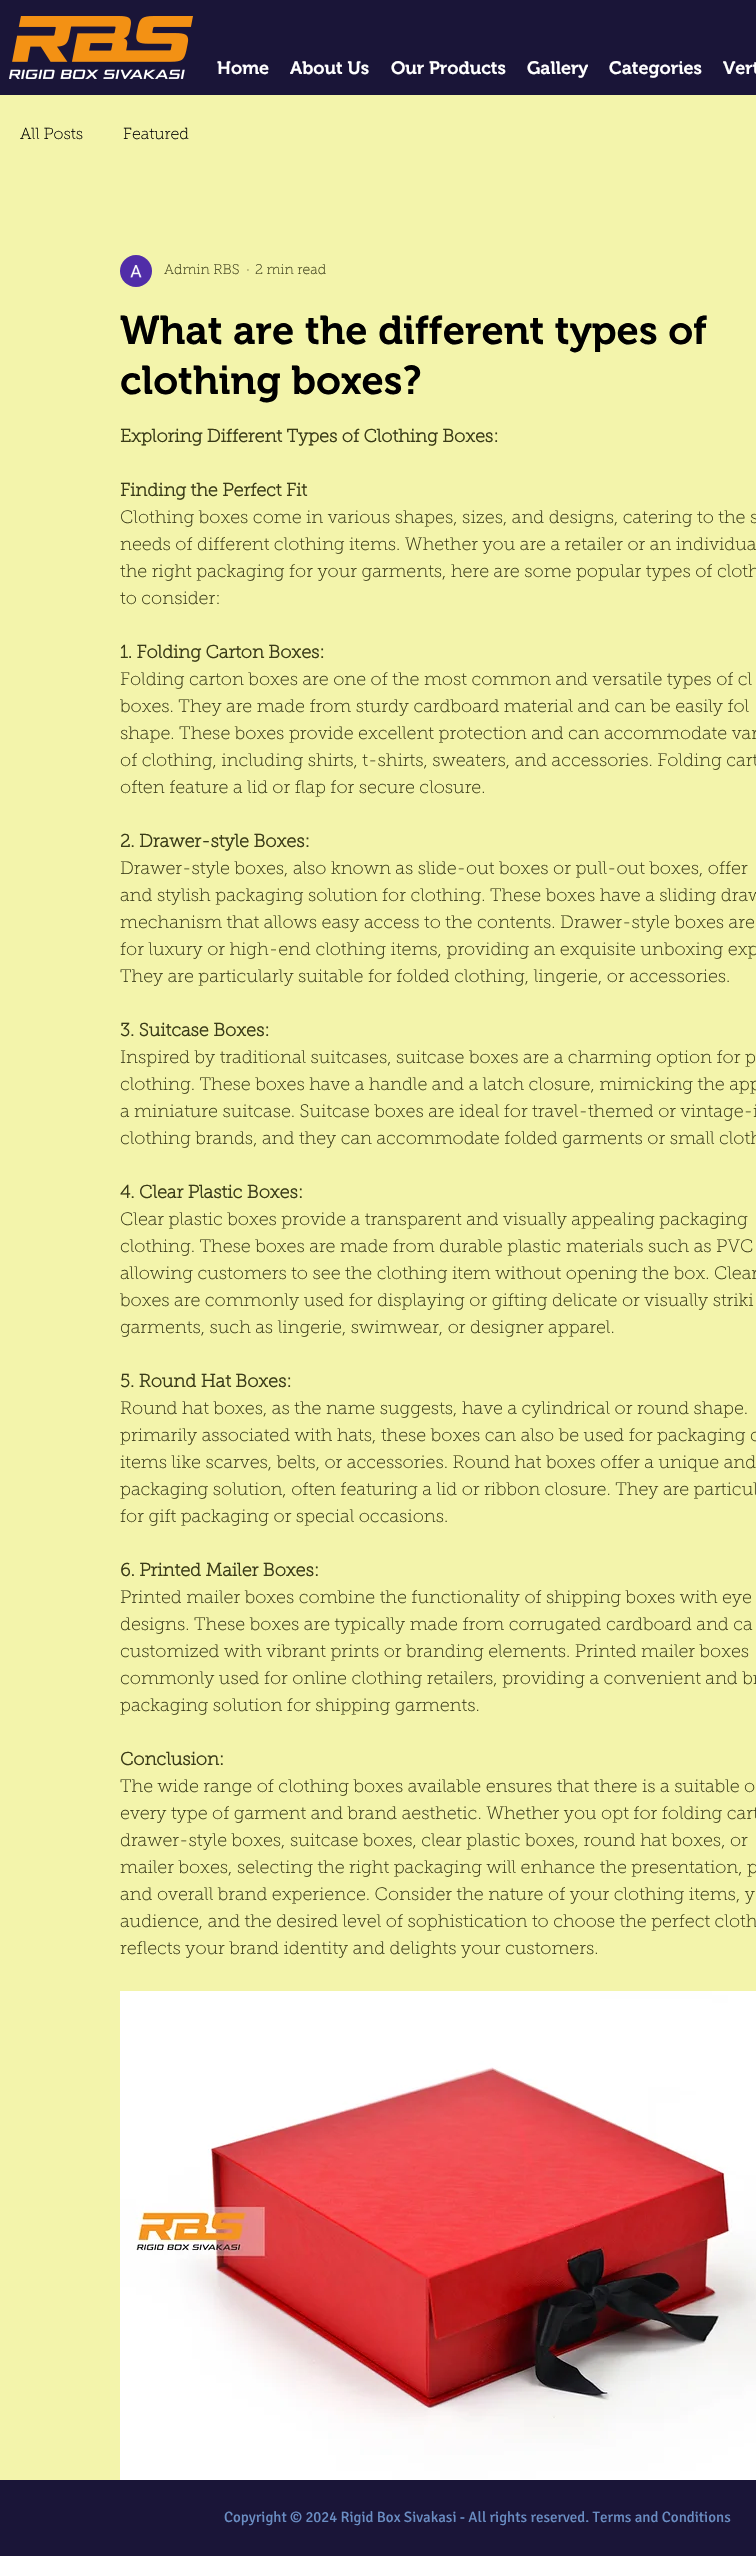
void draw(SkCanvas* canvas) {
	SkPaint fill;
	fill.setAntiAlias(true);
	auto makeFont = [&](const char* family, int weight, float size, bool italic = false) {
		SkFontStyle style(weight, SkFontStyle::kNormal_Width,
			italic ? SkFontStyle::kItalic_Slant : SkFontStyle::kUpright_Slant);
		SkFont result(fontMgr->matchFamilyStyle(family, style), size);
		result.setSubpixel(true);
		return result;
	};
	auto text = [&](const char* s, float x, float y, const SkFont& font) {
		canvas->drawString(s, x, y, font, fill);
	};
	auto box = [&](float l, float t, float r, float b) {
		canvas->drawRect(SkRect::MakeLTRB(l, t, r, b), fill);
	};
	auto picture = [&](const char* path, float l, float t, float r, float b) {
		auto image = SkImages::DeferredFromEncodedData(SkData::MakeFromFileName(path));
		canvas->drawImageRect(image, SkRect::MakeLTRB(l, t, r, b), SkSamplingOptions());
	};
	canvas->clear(0xFFF3F4AB);
	fill.setColor(0xFF1A1538);
	box(0, 0, 756, 95);
	picture("image0.png", 9, 16, 193, 79);
	picture("image1.png", 120, 255, 152, 287);
	picture("image2.png", 120, 1991, 756, 2480);
	box(0, 2480, 756, 2556);
	auto font1 = makeFont("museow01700", 600, 18);
	fill.setColor(0xFFFFFFFF);
	text("Home", 217, 74, font1);
	text("About Us", 290, 74, font1);
	text("Our Products", 391, 74, font1);
	text("Gallery", 527, 74, font1);
	text("Categories", 609, 74, font1);
	text("Vert", 723, 74, font1);
	auto font2 = makeFont("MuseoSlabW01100", 100, 16);
	fill.setColor(0xFF000000);
	text("All Posts", 20, 139, font2);
	text("Featured", 123, 139, font2);
	auto font3 = makeFont("MuseoSlabW01100", 100, 14);
	fill.setColor(0xFF3A3B17);
	text("Admin RBS", 164, 274, font3);
	text("·", 246, 274, font3);
	text("2 min read", 255, 274, font3);
	auto font4 = makeFont("museow01700", 600, 40);
	fill.setColor(0xFF000000);
	text("What are the different types of", 120, 344, font4);
	text("clothing boxes?", 120, 394, font4);
	auto font5 = makeFont("MuseoSlabW01100", 700, 18);
	fill.setColor(0xFF3A3B17);
	text("Exploring Different Types of Clothing Boxes:", 120, 442, font5);
	text("Finding the Perfect Fit", 120, 496, font5);
	auto font6 = makeFont("MuseoSlabW01100", 100, 18);
	text("Clothing boxes come in various shapes, sizes, and designs, catering to the s", 120, 523, font6);
	text("needs of different clothing items. Whether you are a retailer or an individua", 120, 550, font6);
	text("the right packaging for your garments, here are some popular types of cloth", 120, 577, font6);
	text("to consider:", 120, 604, font6);
	text("1. Folding Carton Boxes:", 120, 658, font5);
	text("Folding carton boxes are one of the most common and versatile types of cl", 120, 685, font6);
	text("boxes. They are made from sturdy cardboard material and can be easily fol", 120, 712, font6);
	text("shape. These boxes provide excellent protection and can accommodate var", 120, 739, font6);
	text("of clothing, including shirts, t-shirts, sweaters, and accessories. Folding cart", 120, 766, font6);
	text("often feature a lid or flap for secure closure.", 120, 793, font6);
	text("2. Drawer-style Boxes:", 120, 847, font5);
	text("Drawer-style boxes, also known as slide-out boxes or pull-out boxes, offer", 120, 874, font6);
	text("and stylish packaging solution for clothing. These boxes have a sliding draw", 120, 901, font6);
	text("mechanism that allows easy access to the contents. Drawer-style boxes are", 120, 928, font6);
	text("for luxury or high-end clothing items, providing an exquisite unboxing exp", 120, 955, font6);
	text("They are particularly suitable for folded clothing, lingerie, or accessories.", 120, 982, font6);
	text("3. Suitcase Boxes:", 120, 1036, font5);
	text("Inspired by traditional suitcases, suitcase boxes are a charming option for p", 120, 1063, font6);
	text("clothing. These boxes have a handle and a latch closure, mimicking the app", 120, 1090, font6);
	text("a miniature suitcase. Suitcase boxes are ideal for travel-themed or vintage-i", 120, 1117, font6);
	text("clothing brands, and they can accommodate folded garments or small cloth", 120, 1144, font6);
	text("4. Clear Plastic Boxes:", 120, 1198, font5);
	text("Clear plastic boxes provide a transparent and visually appealing packaging", 120, 1225, font6);
	text("clothing. These boxes are made from durable plastic materials such as PVC", 120, 1252, font6);
	text("allowing customers to see the clothing item without opening the box. Clear", 120, 1279, font6);
	text("boxes are commonly used for displaying or gifting delicate or visually striki", 120, 1306, font6);
	text("garments, such as lingerie, swimwear, or designer apparel.", 120, 1333, font6);
	text("5. Round Hat Boxes:", 120, 1387, font5);
	text("Round hat boxes, as the name suggests, have a cylindrical or round shape.", 120, 1414, font6);
	text("primarily associated with hats, these boxes can also be used for packaging c", 120, 1441, font6);
	text("items like scarves, belts, or accessories. Round hat boxes offer a unique and", 120, 1468, font6);
	text("packaging solution, often featuring a lid or ribbon closure. They are particul", 120, 1495, font6);
	text("for gift packaging or special occasions.", 120, 1522, font6);
	text("6. Printed Mailer Boxes:", 120, 1576, font5);
	text("Printed mailer boxes combine the functionality of shipping boxes with eye", 120, 1603, font6);
	text("designs. These boxes are typically made from corrugated cardboard and ca", 120, 1630, font6);
	text("customized with vibrant prints or branding elements. Printed mailer boxes", 120, 1657, font6);
	text("commonly used for online clothing retailers, providing a convenient and br", 120, 1684, font6);
	text("packaging solution for shipping garments.", 120, 1711, font6);
	text("Conclusion:", 120, 1765, font5);
	text("The wide range of clothing boxes available ensures that there is a suitable o", 120, 1792, font6);
	text("every type of garment and brand aesthetic. Whether you opt for folding cart", 120, 1819, font6);
	text("drawer-style boxes, suitcase boxes, clear plastic boxes, round hat boxes, or", 120, 1846, font6);
	text("mailer boxes, selecting the right packaging will enhance the presentation, p", 120, 1873, font6);
	text("and overall brand experience. Consider the nature of your clothing items, y", 120, 1900, font6);
	text("audience, and the desired level of sophistication to choose the perfect cloth", 120, 1927, font6);
	text("reflects your brand identity and delights your customers.", 120, 1954, font6);
	auto font7 = makeFont("Signika", 400, 15);
	fill.setColor(0xFF6A8DC3);
	text("Copyright © 2024 Rigid Box Sivakasi - All rights reserved. Terms and Conditions", 224, 2522, font7);
}
